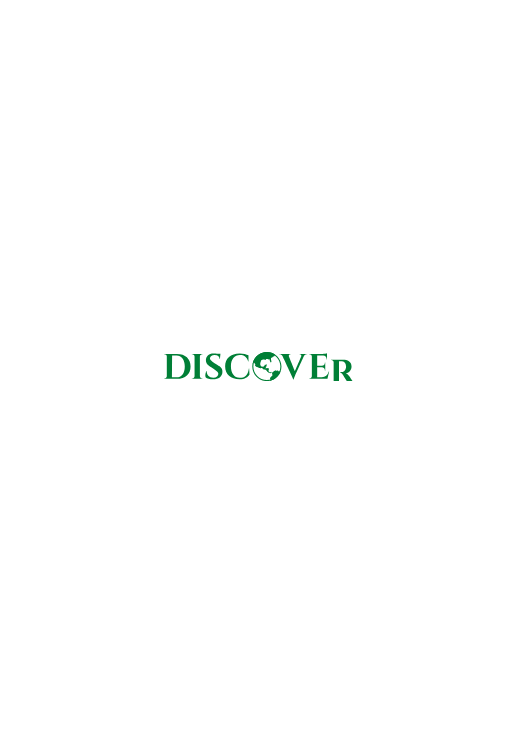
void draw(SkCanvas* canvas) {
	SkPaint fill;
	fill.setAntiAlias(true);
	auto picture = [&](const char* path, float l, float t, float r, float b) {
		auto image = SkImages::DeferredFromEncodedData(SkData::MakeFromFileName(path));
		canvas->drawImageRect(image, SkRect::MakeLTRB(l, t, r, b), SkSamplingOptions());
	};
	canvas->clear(0xFFFFFFFF);
	picture("image0.png", 164, 352, 353, 381);
}
